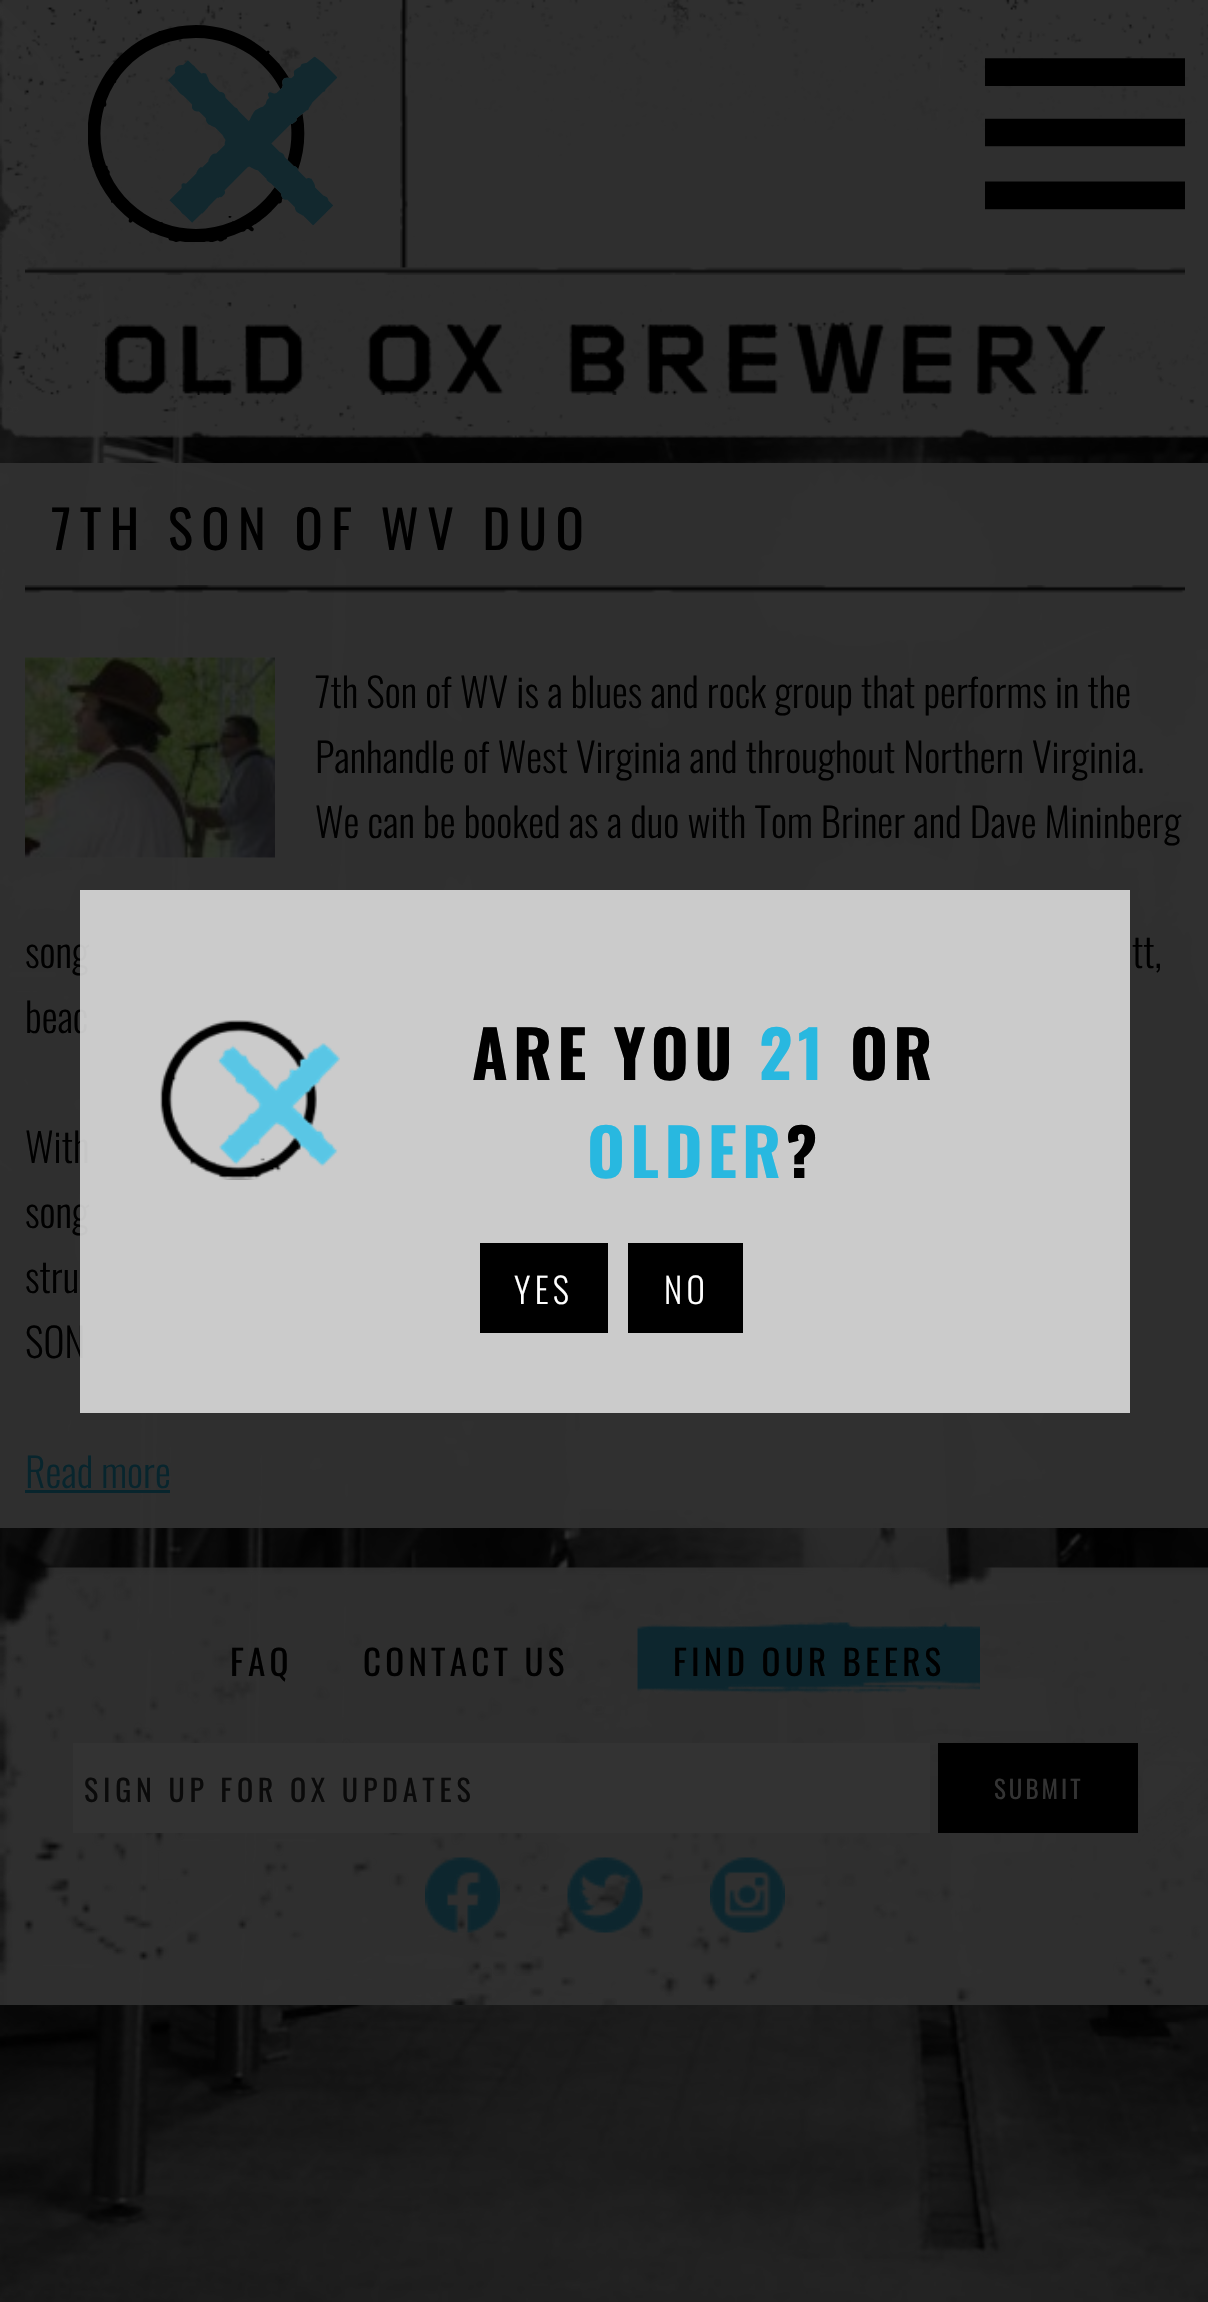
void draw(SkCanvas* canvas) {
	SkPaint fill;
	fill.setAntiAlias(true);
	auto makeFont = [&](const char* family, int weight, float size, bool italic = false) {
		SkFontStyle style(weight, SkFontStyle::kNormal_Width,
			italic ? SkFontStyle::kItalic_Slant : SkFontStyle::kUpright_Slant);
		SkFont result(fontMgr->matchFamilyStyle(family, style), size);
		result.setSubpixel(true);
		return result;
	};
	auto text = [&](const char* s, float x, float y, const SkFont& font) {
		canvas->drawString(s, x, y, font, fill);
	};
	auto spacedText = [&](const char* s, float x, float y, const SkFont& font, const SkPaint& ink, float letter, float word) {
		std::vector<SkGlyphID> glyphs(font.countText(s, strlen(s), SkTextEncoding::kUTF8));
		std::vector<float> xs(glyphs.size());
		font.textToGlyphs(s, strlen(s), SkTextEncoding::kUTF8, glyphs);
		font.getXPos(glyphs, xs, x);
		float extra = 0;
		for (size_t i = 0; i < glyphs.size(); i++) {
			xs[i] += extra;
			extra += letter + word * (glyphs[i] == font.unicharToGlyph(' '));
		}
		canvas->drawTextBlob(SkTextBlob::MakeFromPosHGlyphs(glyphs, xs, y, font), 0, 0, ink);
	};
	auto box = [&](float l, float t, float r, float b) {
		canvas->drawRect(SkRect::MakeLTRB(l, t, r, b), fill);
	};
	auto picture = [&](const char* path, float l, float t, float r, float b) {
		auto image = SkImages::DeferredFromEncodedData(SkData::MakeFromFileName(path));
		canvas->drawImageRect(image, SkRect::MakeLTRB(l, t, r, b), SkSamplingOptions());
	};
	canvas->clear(0xFFFFFFFF);
	picture("image0.png", 0, 0, 1208, 2302);
	picture("image1.png", 0, 0, 1208, 438);
	picture("image2.png", 400, 0, 408, 268);
	picture("image3.png", 88, 25, 337, 242);
	picture("image4.png", 985, 58, 1185, 210);
	picture("image5.png", 25, 267, 1185, 275);
	picture("image6.png", 105, 302, 1105, 395);
	fill.setColor(0xF5303030);
	box(0, 463, 1208, 1528);
	picture("image7.png", 25, 585, 1185, 593);
	picture("image8.png", 25, 657, 275, 858);
	fill.setColor(0xFF08252D);
	box(25, 1490, 170, 1493);
	picture("image10.png", 0, 1567, 1208, 2005);
	picture("image11.png", 637, 1622, 980, 1694);
	fill.setColor(0xFF333333);
	box(73, 1743, 930, 1833);
	fill.setColor(0xFF000000);
	box(938, 1743, 1138, 1833);
	picture("image12.png", 425, 1857, 500, 1933);
	picture("image13.png", 567, 1857, 643, 1933);
	picture("image14.png", 710, 1857, 785, 1933);
	auto font1 = makeFont("Oswald", 400, 52.5f);
	spacedText("7TH SON OF WV DUO", 51, 550, font1, fill, 8.4f, 0);
	auto font2 = makeFont("Oswald", 300, 40);
	text("7th Son of WV is a blues and rock group that performs in the", 315, 708, font2);
	text("Panhandle of West Virginia and throughout Northern Virginia.", 315, 773, font2);
	text("We can be booked as a duo with Tom Briner and Dave Mininberg", 315, 838, font2);
	text("song", 25, 968, font2);
	text("tt,", 1132, 968, font2);
	text("beac", 25, 1033, font2);
	text("With", 25, 1163, font2);
	text("song", 25, 1228, font2);
	text("stru", 25, 1293, font2);
	text("SON", 25, 1358, font2);
	fill.setColor(0xFF08252D);
	text("Read more", 25, 1488, font2);
	fill.setColor(0xE6DCDCDC);
	box(80, 890, 1130, 1413);
	picture("image9.png", 160, 1020, 340, 1180);
	auto font3 = makeFont("Oswald", 700, 65);
	fill.setColor(0xFF000000);
	spacedText("ARE YOU", 472, 1080, font3, fill, 5.25f, 0);
	fill.setColor(0xFF28B8E0);
	spacedText("21", 759, 1080, font3, fill, 5.25f, 0);
	fill.setColor(0xFF000000);
	spacedText("OR", 850, 1080, font3, fill, 5.25f, 0);
	fill.setColor(0xFF28B8E0);
	spacedText("OLDER", 587, 1178, font3, fill, 5.25f, 0);
	fill.setColor(0xFF000000);
	spacedText("?", 786, 1178, font3, fill, 5.25f, 0);
	box(480, 1243, 608, 1333);
	auto font4 = makeFont("Oswald", 300, 35);
	fill.setColor(0xFFFFFFFF);
	spacedText("YES", 514, 1304, font4, fill, 4.25f, 0);
	fill.setColor(0xFF000000);
	box(628, 1243, 743, 1333);
	fill.setColor(0xFFFFFFFF);
	spacedText("NO", 664, 1304, font4, fill, 4.25f, 0);
	auto font5 = makeFont("Oswald", 400, 35);
	fill.setColor(0xFF000000);
	spacedText("FAQ", 230, 1676, font5, fill, 4.25f, 0);
	spacedText("CONTACT US", 363, 1676, font5, fill, 4.25f, 0);
	spacedText("FIND OUR BEERS", 673, 1676, font5, fill, 4.25f, 0);
	auto font6 = makeFont("Oswald", 400, 30);
	fill.setColor(0xFF0A0A0A);
	spacedText("SIGN UP FOR OX UPDATES", 84, 1802, font6, fill, 4.8f, 0);
	auto font7 = makeFont("Oswald", 400, 25);
	fill.setColor(0xFF333333);
	spacedText("SUBMIT", 994, 1799, font7, fill, 3, 0);
}
